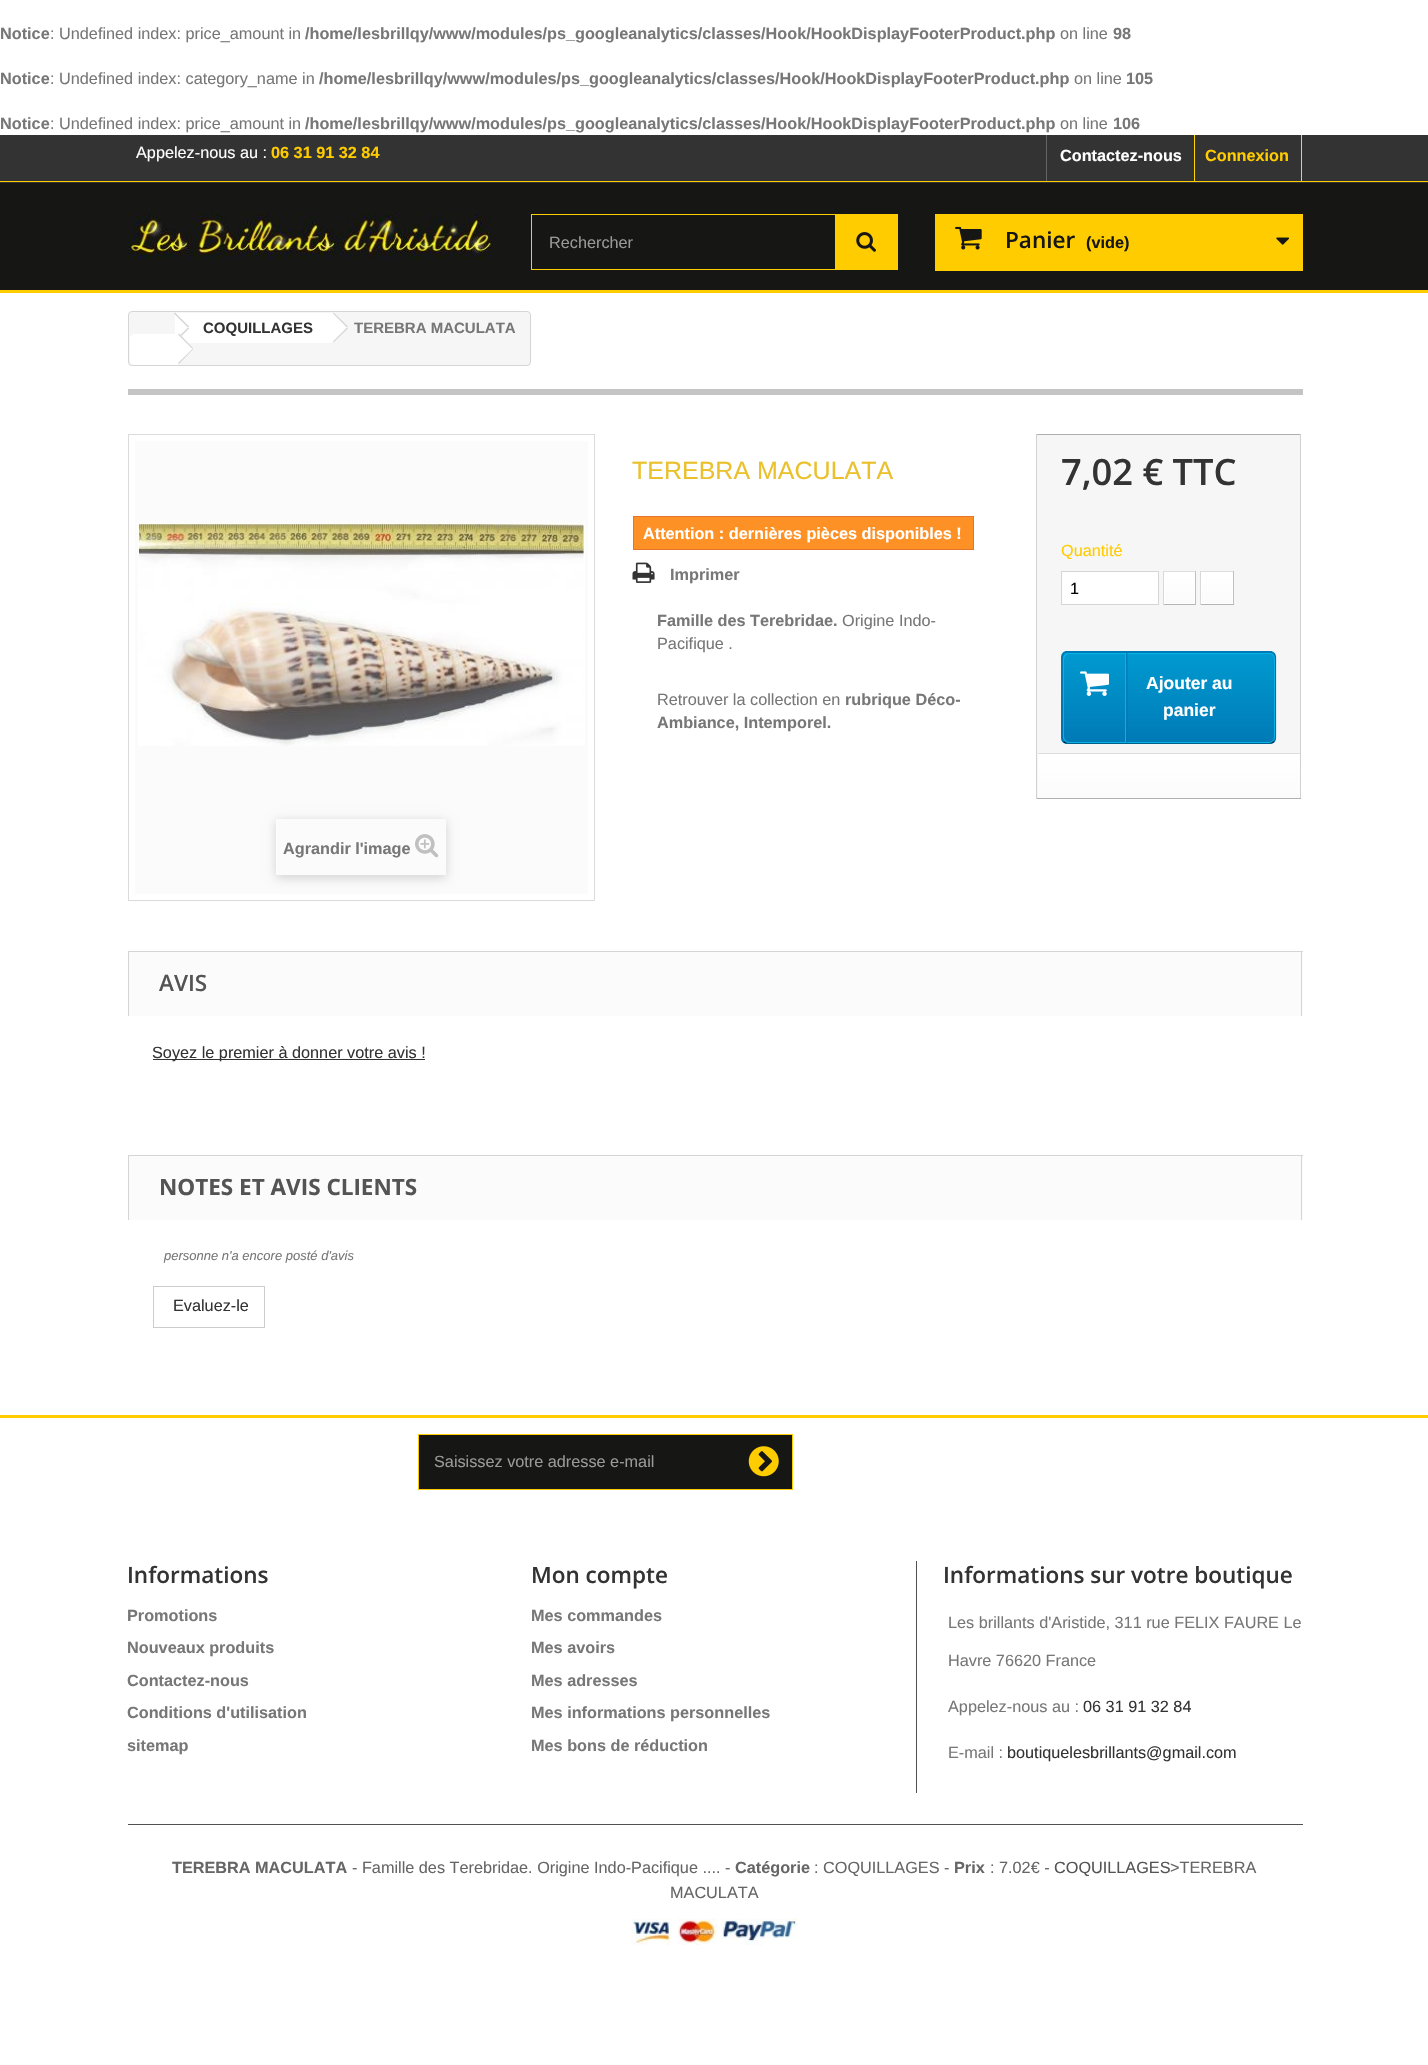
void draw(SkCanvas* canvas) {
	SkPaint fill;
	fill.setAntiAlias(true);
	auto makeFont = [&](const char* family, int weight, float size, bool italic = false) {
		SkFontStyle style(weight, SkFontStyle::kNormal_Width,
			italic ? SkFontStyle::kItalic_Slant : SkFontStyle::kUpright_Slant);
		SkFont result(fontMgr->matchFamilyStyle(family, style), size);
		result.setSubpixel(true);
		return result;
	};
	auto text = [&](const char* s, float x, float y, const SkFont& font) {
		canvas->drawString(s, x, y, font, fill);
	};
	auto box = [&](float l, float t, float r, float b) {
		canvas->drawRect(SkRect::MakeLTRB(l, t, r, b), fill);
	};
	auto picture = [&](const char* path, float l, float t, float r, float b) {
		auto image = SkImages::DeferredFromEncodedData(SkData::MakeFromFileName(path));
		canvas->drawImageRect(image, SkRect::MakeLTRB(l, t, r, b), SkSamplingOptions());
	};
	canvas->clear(0xFFFFFFFF);
	fill.setColor(0xFF161614);
	box(0, 183, 1428, 290);
	fill.setColor(0xFF333333);
	box(0, 135, 1428, 183);
	fill.setColor(0xFFFFCC00);
	box(0, 181, 1428, 182);
	fill.setColor(0xFF656565);
	box(1046, 135, 1047, 181);
	fill.setColor(0xFFFFD700);
	box(1301, 135, 1302, 181);
	box(1194, 135, 1195, 181);
	picture("image0.png", 127, 213, 492, 259);
	fill.setStyle(SkPaint::kStroke_Style);
	fill.setStrokeWidth(1);
	fill.setColor(0xFFFFCC00);
	canvas->drawRect(SkRect::MakeLTRB(531.5f, 214.5f, 897.5f, 269.5f), fill);
	fill.setStyle(SkPaint::kFill_Style);
	box(835, 215, 897, 269);
	picture("image1.png", 856, 232, 876, 252);
	box(935, 214, 1303, 271);
	picture("image2.png", 955, 226, 982, 250);
	picture("image3.png", 1276, 237, 1290, 245);
	box(0, 290, 1428, 293);
	box(0, 1415, 1428, 1418);
	fill.setColor(0xFFF6F6F6);
	canvas->drawRoundRect(SkRect::MakeLTRB(128.5f, 311.5f, 530.5f, 365.5f), 3.5f, 3.5f, fill);
	fill.setStyle(SkPaint::kStroke_Style);
	fill.setColor(0xFFD6D4D4);
	canvas->drawRoundRect(SkRect::MakeLTRB(128.5f, 311.5f, 530.5f, 365.5f), 3.5f, 3.5f, fill);
	fill.setStyle(SkPaint::kFill_Style);
	fill.setColor(0xFFFFFFFF);
	box(175, 313, 331, 343);
	fill.setColor(0xFFD6D4D4);
	canvas->drawPath(SkPathBuilder().moveTo(175, 312.5f).lineTo(189, 326.5f).lineTo(188, 327.5f).lineTo(174, 313.5f).close().detach(), fill);
	canvas->drawPath(SkPathBuilder().moveTo(188, 327.5f).lineTo(189, 328.5f).lineTo(175, 342.5f).lineTo(174, 341.5f).close().detach(), fill);
	fill.setColor(0xFFFFFFFF);
	canvas->drawPath(SkPathBuilder().moveTo(334.5f, 313.5f).cubicTo(334, 313, 333.5f, 313, 333, 313).cubicTo(331, 313, 330.5f, 314, 329, 315.5f).lineTo(320.5f, 323.5f).cubicTo(317, 327, 317, 328, 320.5f, 331.5f).lineTo(325, 335.5f).cubicTo(333, 343.5f, 331, 345, 338.5f, 337.5f).lineTo(343, 333.5f).cubicTo(344.5f, 332, 350, 328.5f, 347, 325.5f).close().detach(), fill);
	fill.setColor(0xFFD6D4D4);
	canvas->drawPath(SkPathBuilder().moveTo(333.5f, 312.5f).lineTo(348, 326.5f).lineTo(347, 327.5f).lineTo(333, 313.5f).close().detach(), fill);
	canvas->drawPath(SkPathBuilder().moveTo(347, 327.5f).lineTo(348, 328.5f).lineTo(333.5f, 342.5f).lineTo(333, 341.5f).close().detach(), fill);
	fill.setColor(0xFFFFFFFF);
	canvas->drawPath(SkPathBuilder().moveTo(134, 334).lineTo(178, 334).lineTo(178, 365).lineTo(134, 365).cubicTo(132, 365, 130, 363, 130, 361).lineTo(130, 338).cubicTo(130, 336, 132, 334, 134, 334).close().detach(), fill);
	canvas->drawPath(SkPathBuilder().moveTo(180, 334.5f).lineTo(192.5f, 347).cubicTo(193, 348, 193, 349.5f, 192.5f, 350.5f).lineTo(180, 363).cubicTo(179, 364, 177.5f, 364, 176.5f, 363).lineTo(164, 350.5f).cubicTo(163, 349.5f, 163, 348, 164, 347).lineTo(176.5f, 334.5f).cubicTo(177.5f, 333.5f, 179, 333.5f, 180, 334.5f).close().detach(), fill);
	fill.setColor(0xFFD6D4D4);
	canvas->drawPath(SkPathBuilder().moveTo(179, 333.5f).lineTo(193, 348).lineTo(192.5f, 349).lineTo(178, 334.5f).close().moveTo(192.5f, 349).lineTo(193, 349.5f).lineTo(179, 364).lineTo(178, 363).close().detach(), fill);
	fill.setColor(0xFFC4C4C4);
	box(128, 389, 1303, 395);
	fill.setColor(0xFFFE9126);
	canvas->drawRect(SkRect::MakeLTRB(633.5f, 516.5f, 973.5f, 549.5f), fill);
	fill.setStyle(SkPaint::kStroke_Style);
	fill.setColor(0xFFE4752B);
	canvas->drawRect(SkRect::MakeLTRB(633.5f, 516.5f, 973.5f, 549.5f), fill);
	picture("image4.png", 632, 562, 655, 583);
	fill.setStyle(SkPaint::kFill_Style);
	fill.setColor(0xFFF6F6F6);
	box(1037, 435, 1300, 798);
	fill.setColor(0xFFB0AFAF);
	box(1036, 434, 1301, 435);
	fill.setColor(0xFFD2D0D0);
	box(1300, 434, 1301, 799);
	fill.setColor(0xFFB0AFAF);
	box(1036, 798, 1301, 799);
	fill.setColor(0xFFD2D0D0);
	box(1036, 434, 1037, 799);
	fill.setColor(0xFFFFFFFF);
	canvas->drawRect(SkRect::MakeLTRB(1061.5f, 571.5f, 1158.5f, 604.5f), fill);
	fill.setStyle(SkPaint::kStroke_Style);
	fill.setColor(0xFFD6D4D4);
	canvas->drawRect(SkRect::MakeLTRB(1061.5f, 571.5f, 1158.5f, 604.5f), fill);
	fill.setStyle(SkPaint::kFill_Style);
	fill.setColor(0xFFFFFFFF);
	box(1164, 572, 1195, 573);
	fill.setColor(0xFFDEDCDC);
	box(1163, 571, 1196, 572);
	fill.setColor(0xFFC1BFBF);
	box(1195, 571, 1196, 605);
	fill.setColor(0xFFB5B4B4);
	box(1163, 604, 1196, 605);
	fill.setColor(0xFFDAD8D8);
	box(1163, 571, 1164, 605);
	{
		const SkColor colors[] = {0xFFFFFFFF, 0xFFFBFBFB};
		const float stops[] = {0, 1};
		const SkPoint ends[] = {{1179, 574}, {1179, 603}};
		fill.setShader(SkGradientShader::MakeLinear(ends, colors, stops, 2, SkTileMode::kClamp));
		fill.setAlpha(255);
	}
	box(1165, 574, 1194, 603);
	fill.setStyle(SkPaint::kStroke_Style);
	fill.setShader(nullptr);
	fill.setColor(0xFFFFFFFF);
	canvas->drawRect(SkRect::MakeLTRB(1164.5f, 573.5f, 1194.5f, 603.5f), fill);
	fill.setStyle(SkPaint::kFill_Style);
	box(1201, 572, 1233, 573);
	fill.setColor(0xFFDEDCDC);
	box(1200, 571, 1234, 572);
	fill.setColor(0xFFC1BFBF);
	box(1233, 571, 1234, 605);
	fill.setColor(0xFFB5B4B4);
	box(1200, 604, 1234, 605);
	fill.setColor(0xFFDAD8D8);
	box(1200, 571, 1201, 605);
	{
		const SkColor colors[] = {0xFFFFFFFF, 0xFFFBFBFB};
		const float stops[] = {0, 1};
		const SkPoint ends[] = {{1217, 574}, {1217, 603}};
		fill.setShader(SkGradientShader::MakeLinear(ends, colors, stops, 2, SkTileMode::kClamp));
		fill.setAlpha(255);
	}
	box(1202, 574, 1232, 603);
	fill.setStyle(SkPaint::kStroke_Style);
	fill.setShader(nullptr);
	fill.setColor(0xFFFFFFFF);
	canvas->drawRect(SkRect::MakeLTRB(1201.5f, 573.5f, 1232.5f, 603.5f), fill);
	canvas->save();
	canvas->clipPath(SkPathBuilder().moveTo(1067, 651).lineTo(1270, 651).cubicTo(1273.5f, 651, 1276, 653.5f, 1276, 657).lineTo(1276, 738).cubicTo(1276, 741.5f, 1273.5f, 744, 1270, 744).lineTo(1067, 744).cubicTo(1063.5f, 744, 1061, 741.5f, 1061, 738).lineTo(1061, 657).cubicTo(1061, 653.5f, 1063.5f, 651, 1067, 651).close().detach(), true);
	fill.setStyle(SkPaint::kFill_Style);
	{
		const SkColor colors[] = {0xFF009AD0, 0xFF007AB7};
		const float stops[] = {0, 1};
		const SkPoint ends[] = {{1169, 563}, {1169, 653}};
		fill.setShader(SkGradientShader::MakeLinear(ends, colors, stops, 2, SkTileMode::kClamp));
		fill.setAlpha(255);
	}
	box(1061, 651, 1276, 653);
	{
		const SkColor colors[] = {0xFF009AD0, 0xFF007AB7};
		const float stops[] = {0, 1};
		const SkPoint ends[] = {{1169, 653}, {1169, 743}};
		fill.setShader(SkGradientShader::MakeLinear(ends, colors, stops, 2, SkTileMode::kClamp));
		fill.setAlpha(255);
	}
	box(1061, 653, 1276, 743);
	{
		const SkColor colors[] = {0xFF009AD0, 0xFF007AB7};
		const float stops[] = {0, 1};
		const SkPoint ends[] = {{1169, 743}, {1169, 833}};
		fill.setShader(SkGradientShader::MakeLinear(ends, colors, stops, 2, SkTileMode::kClamp));
		fill.setAlpha(255);
	}
	box(1061, 743, 1276, 744);
	canvas->restore();
	fill.setStyle(SkPaint::kStroke_Style);
	fill.setStrokeWidth(1.2f);
	fill.setShader(nullptr);
	fill.setColor(0xFF0079B6);
	canvas->drawPath(SkPathBuilder().moveTo(1063.5f, 653.5f).cubicTo(1064.5f, 652.5f, 1066, 652, 1067.5f, 652).lineTo(1270, 652).cubicTo(1271.5f, 652, 1273, 652.5f, 1274, 653.5f).detach(), fill);
	fill.setColor(0xFF006FA8);
	canvas->drawPath(SkPathBuilder().moveTo(1274, 653.5f).lineTo(1275.5f, 657).lineTo(1275.5f, 738).lineTo(1274, 741.5f).detach(), fill);
	fill.setColor(0xFF012740);
	canvas->drawPath(SkPathBuilder().moveTo(1274, 741.5f).cubicTo(1273, 742.5f, 1271.5f, 743, 1270, 743).lineTo(1067.5f, 743).cubicTo(1066, 743, 1064.5f, 742.5f, 1063.5f, 741.5f).detach(), fill);
	fill.setColor(0xFF006FA8);
	canvas->drawPath(SkPathBuilder().moveTo(1063.5f, 741.5f).lineTo(1062, 738).lineTo(1062, 657).lineTo(1063.5f, 653.5f).detach(), fill);
	fill.setStrokeWidth(1);
	fill.setColor(0xFF06B2E6);
	canvas->drawRoundRect(SkRect::MakeLTRB(1063.5f, 653.5f, 1274.5f, 742.5f), 5.5f, 5.5f, fill);
	canvas->drawPath(SkPathBuilder().moveTo(1069, 653.5f).lineTo(1125.5f, 653.5f).lineTo(1125.5f, 742.5f).lineTo(1069, 742.5f).cubicTo(1066, 742.5f, 1063.5f, 740, 1063.5f, 737).lineTo(1063.5f, 659).cubicTo(1063.5f, 656, 1066, 653.5f, 1069, 653.5f).close().detach(), fill);
	picture("image5.png", 1080, 671, 1109, 696);
	picture("image6.png", 1126, 653, 1128, 743);
	fill.setStyle(SkPaint::kFill_Style);
	{
		const SkColor colors[] = {0xFFFFFFFF, 0xFFFBFBFB};
		const float stops[] = {0, 1};
		const SkPoint ends[] = {{1169, 754}, {1169, 798}};
		fill.setShader(SkGradientShader::MakeLinear(ends, colors, stops, 2, SkTileMode::kClamp));
		fill.setAlpha(255);
	}
	box(1038, 754, 1300, 798);
	fill.setShader(nullptr);
	fill.setColor(0xFFDFDEDE);
	box(1038, 753, 1300, 754);
	fill.setStyle(SkPaint::kStroke_Style);
	fill.setColor(0xFFDBDBDB);
	canvas->drawRect(SkRect::MakeLTRB(128.5f, 434.5f, 594.5f, 900.5f), fill);
	fill.setStyle(SkPaint::kFill_Style);
	fill.setColor(0xFFFBFBFB);
	box(135, 441, 588, 894);
	picture("image7.png", 138, 523, 585, 746);
	canvas->save();
	canvas->clipPath(SkPathBuilder(SkPathFillType::kEvenOdd).moveTo(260, 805).lineTo(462, 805).lineTo(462, 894).lineTo(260, 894).close().moveTo(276, 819).lineTo(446, 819).lineTo(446, 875).lineTo(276, 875).close().detach(), true);
	fill.setColor(0x29000000);
	fill.setMaskFilter(SkMaskFilter::MakeBlur(kNormal_SkBlurStyle, 5));
	canvas->drawRect(SkRect::MakeLTRB(276, 821, 446, 878), fill);
	fill.setMaskFilter(nullptr);
	canvas->restore();
	fill.setColor(0x80FFFFFF);
	box(276, 819, 277, 875);
	picture("image8.png", 415, 834, 439, 858);
	fill.setColor(0xFFFBFBFB);
	box(129, 952, 1303, 1016);
	fill.setColor(0xFFD6D4D4);
	box(128, 951, 1303, 952);
	box(1301, 951, 1302, 1016);
	box(128, 951, 129, 1016);
	fill.setColor(0xFF333333);
	box(153, 1059, 425, 1060);
	fill.setColor(0xFFFBFBFB);
	box(129, 1156, 1303, 1220);
	fill.setColor(0xFFD6D4D4);
	box(128, 1155, 1303, 1156);
	box(1301, 1155, 1302, 1220);
	box(128, 1155, 129, 1220);
	fill.setStyle(SkPaint::kStroke_Style);
	fill.setColor(0xFFCCCCCC);
	canvas->drawRect(SkRect::MakeLTRB(153.5f, 1286.5f, 264.5f, 1327.5f), fill);
	fill.setStyle(SkPaint::kFill_Style);
	fill.setColor(0xFF161614);
	canvas->drawRect(SkRect::MakeLTRB(418.5f, 1434.5f, 792.5f, 1489.5f), fill);
	fill.setStyle(SkPaint::kStroke_Style);
	fill.setColor(0xFFFFCC00);
	canvas->drawRect(SkRect::MakeLTRB(418.5f, 1434.5f, 792.5f, 1489.5f), fill);
	picture("image9.png", 748, 1446, 779, 1477);
	fill.setStyle(SkPaint::kFill_Style);
	fill.setColor(0xFF515151);
	box(916, 1561, 917, 1793);
	box(128, 1824, 1303, 1825);
	picture("image10.png", 631, 1918, 672, 1945);
	picture("image11.png", 677, 1918, 718, 1945);
	picture("image12.png", 721, 1918, 798, 1945);
	auto font1 = makeFont("Liberation Sans", 700, 16.25f);
	fill.setColor(0xFF777777);
	text("Notice", 0, 39, font1);
	auto font2 = makeFont("Liberation Sans", 400, 16.25f);
	text(": Undefined index: price_amount in", 50, 39, font2);
	text("/home/lesbrillqy/www/modules/ps_googleanalytics/classes/Hook/HookDisplayFooterProduct.php", 305, 39, font1);
	text("on line", 1060, 39, font2);
	text("98", 1113, 39, font1);
	text("Notice", 0, 84, font1);
	text(": Undefined index: category_name in", 50, 84, font2);
	text("/home/lesbrillqy/www/modules/ps_googleanalytics/classes/Hook/HookDisplayFooterProduct.php", 319, 84, font1);
	text("on line", 1074, 84, font2);
	text("105", 1126, 84, font1);
	text("Notice", 0, 129, font1);
	text(": Undefined index: price_amount in", 50, 129, font2);
	text("/home/lesbrillqy/www/modules/ps_googleanalytics/classes/Hook/HookDisplayFooterProduct.php", 305, 129, font1);
	text("on line", 1060, 129, font2);
	text("106", 1113, 129, font1);
	fill.setColor(0xFFFFFFFF);
	text("Appelez-nous au :", 136, 158, font2);
	fill.setColor(0xFFFFCC00);
	text("06 31 91 32 84", 271, 158, font1);
	fill.setColor(0xFFFFFFFF);
	text("Contactez-nous", 1060, 161, font1);
	fill.setColor(0xFFFFCC00);
	text("Connexion", 1205, 161, font1);
	fill.setColor(0xFF999999);
	text("Rechercher", 549, 248, font2);
	auto font3 = makeFont("Open Sans", 600, 22.5f);
	fill.setColor(0xFF161614);
	text("Panier", 1005, 248, font3);
	text("(vide)", 1086, 248, font1);
	auto font4 = makeFont("Liberation Sans", 700, 15);
	fill.setColor(0xFF333333);
	text("COQUILLAGES", 203, 333, font4);
	fill.setColor(0xFF777777);
	text("TEREBRA MACULATA", 354, 333, font4);
	auto font5 = makeFont("Liberation Sans", 400, 25);
	fill.setColor(0xFFEAC12D);
	text("TEREBRA MACULATA", 632, 479, font5);
	fill.setColor(0xFFFFFFFF);
	text("Attention : dernières pièces disponibles !", 643, 539, font1);
	fill.setColor(0xFF777777);
	text("Imprimer", 670, 580, font1);
	text("Famille des Terebridae.", 657, 626, font1);
	text("Origine Indo-", 842, 626, font2);
	text("Pacifique .", 657, 649, font2);
	text("Retrouver la collection en", 657, 705, font2);
	text("rubrique Déco-", 845, 705, font1);
	text("Ambiance, Intemporel.", 657, 728, font1);
	auto font6 = makeFont("Open Sans", 600, 36.25f);
	fill.setColor(0xFF333333);
	text("7,02 € TTC", 1061, 485, font6);
	fill.setColor(0xFFFFCC00);
	text("Quantité", 1061, 556, font2);
	fill.setColor(0xFF000000);
	text("1", 1070, 594, font2);
	auto font7 = makeFont("Liberation Sans", 700, 17.5f);
	fill.setColor(0xFFFFFFFF);
	text("Ajouter au", 1146, 689, font7);
	text("panier", 1163, 716, font7);
	fill.setColor(0xFF777777);
	text("Agrandir l'image", 283, 854, font1);
	fill.setColor(0xFF555454);
	text("AVIS", 159, 991, font3);
	fill.setColor(0xFF333333);
	text("Soyez le premier à donner votre avis !", 152, 1058, font2);
	auto font8 = makeFont("Open Sans", 700, 22.5f);
	fill.setColor(0xFF555454);
	text("NOTES ET AVIS CLIENTS", 159, 1195, font8);
	auto font9 = makeFont("Liberation Sans", 400, 13, true);
	fill.setColor(0xFF777777);
	text("personne n'a encore posté d'avis", 164, 1260, font9);
	fill.setColor(0xFF333333);
	text("Evaluez-le", 173, 1311, font2);
	fill.setColor(0xFF999999);
	text("Saisissez votre adresse e-mail", 434, 1467, font2);
	fill.setColor(0xFF333333);
	text("Informations", 127, 1583, font3);
	fill.setColor(0xFF777777);
	text("Promotions", 127, 1621, font1);
	text("Nouveaux produits", 127, 1653, font1);
	text("Contactez-nous", 127, 1686, font1);
	text("Conditions d'utilisation", 127, 1718, font1);
	text("sitemap", 127, 1751, font1);
	fill.setColor(0xFF333333);
	text("Mon compte", 531, 1583, font3);
	fill.setColor(0xFF777777);
	text("Mes commandes", 531, 1621, font1);
	text("Mes avoirs", 531, 1653, font1);
	text("Mes adresses", 531, 1686, font1);
	text("Mes informations personnelles", 531, 1718, font1);
	text("Mes bons de réduction", 531, 1751, font1);
	fill.setColor(0xFF333333);
	text("Informations sur votre boutique", 943, 1583, font3);
	fill.setColor(0xFF777777);
	text("Les brillants d'Aristide, 311 rue FELIX FAURE Le", 948, 1628, font2);
	text("Havre 76620 France", 948, 1666, font2);
	text("Appelez-nous au :", 948, 1712, font2);
	fill.setColor(0xFF333333);
	text("06 31 91 32 84", 1083, 1712, font2);
	fill.setColor(0xFF777777);
	text("E-mail :", 948, 1758, font2);
	fill.setColor(0xFF333333);
	text("boutiquelesbrillants@gmail.com", 1007, 1758, font2);
	fill.setColor(0xFF666666);
	text("TEREBRA MACULATA", 172, 1873, font1);
	text("- Famille des Terebridae. Origine Indo-Pacifique .... -", 352, 1873, font2);
	text("Catégorie", 735, 1873, font1);
	text(": COQUILLAGES -", 814, 1873, font2);
	text("Prix", 954, 1873, font1);
	text(": 7.02€ -", 990, 1873, font2);
	fill.setColor(0xFF555454);
	text("COQUILLAGES", 1054, 1873, font2);
	fill.setColor(0xFF666666);
	text(">TEREBRA", 1170, 1873, font2);
	text("MACULATA", 670, 1898, font2);
}
